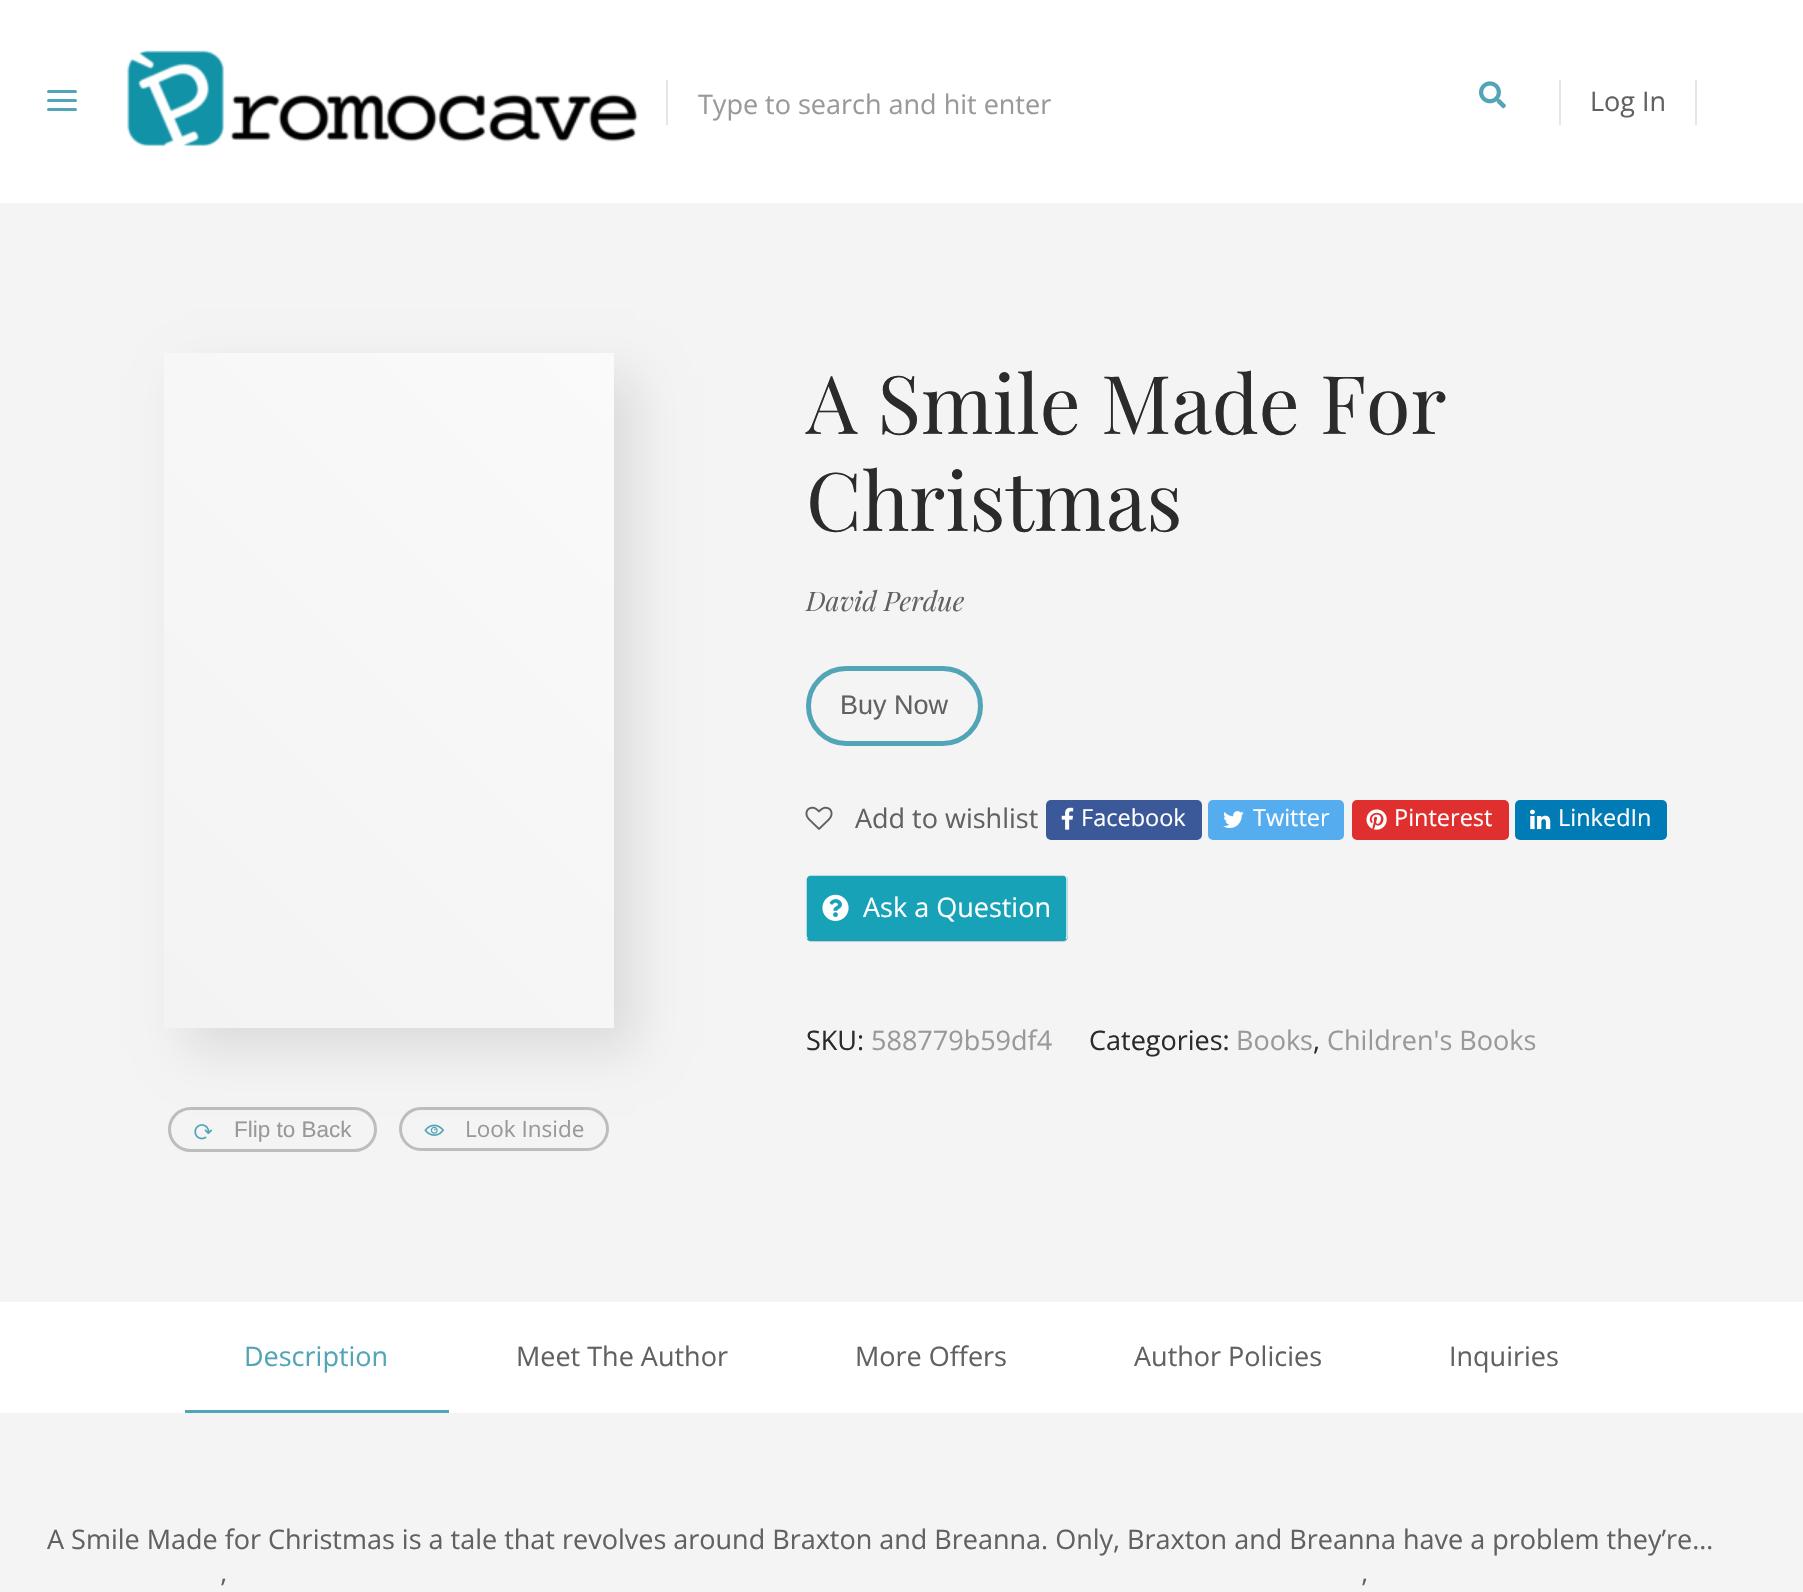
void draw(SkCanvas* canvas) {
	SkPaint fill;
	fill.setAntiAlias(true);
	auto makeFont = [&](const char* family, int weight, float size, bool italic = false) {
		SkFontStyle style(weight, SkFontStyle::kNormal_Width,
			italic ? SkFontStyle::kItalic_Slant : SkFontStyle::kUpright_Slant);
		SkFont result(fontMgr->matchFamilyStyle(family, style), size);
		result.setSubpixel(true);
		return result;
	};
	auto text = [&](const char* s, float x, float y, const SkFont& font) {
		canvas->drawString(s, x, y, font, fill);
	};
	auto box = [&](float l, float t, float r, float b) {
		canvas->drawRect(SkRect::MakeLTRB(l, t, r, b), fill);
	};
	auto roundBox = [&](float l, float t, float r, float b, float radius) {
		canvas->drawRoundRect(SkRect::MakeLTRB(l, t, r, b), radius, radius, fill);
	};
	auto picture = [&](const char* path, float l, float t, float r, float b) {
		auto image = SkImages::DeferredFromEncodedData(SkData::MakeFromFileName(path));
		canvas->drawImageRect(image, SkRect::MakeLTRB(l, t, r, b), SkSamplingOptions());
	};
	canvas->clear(0xFFF4F4F4);
	fill.setColor(0xFFFFFFFF);
	box(0, 0, 1803, 203);
	fill.setColor(0xFF52A5B7);
	roundBox(47, 99, 77, 102, 1.5f);
	roundBox(47, 90, 77, 93, 1.5f);
	roundBox(47, 108, 77, 111, 1.5f);
	picture("image0.png", 127, 50, 638, 147);
	fill.setColor(0xFFE6E6E6);
	box(666, 80, 668, 125);
	picture("image1.png", 1479, 81, 1506, 109);
	box(1559, 80, 1561, 125);
	box(1695, 80, 1697, 125);
	fill.setStyle(SkPaint::kStroke_Style);
	fill.setStrokeWidth(5);
	fill.setColor(0xFF52A5B7);
	canvas->drawRoundRect(SkRect::MakeLTRB(808.5f, 668.5f, 980.5f, 743.5f), 37.5f, 37.5f, fill);
	picture("image2.png", 805, 806, 833, 830);
	fill.setStyle(SkPaint::kFill_Style);
	fill.setColor(0xFF3B5998);
	roundBox(1046, 800, 1202, 840, 5);
	picture("image3.png", 1061, 807, 1074, 830);
	fill.setColor(0xFF55ACEE);
	roundBox(1208, 800, 1344, 840, 5);
	picture("image4.png", 1223, 811, 1244, 828);
	fill.setColor(0xFFE02F2F);
	roundBox(1352, 800, 1509, 840, 5);
	picture("image5.png", 1366, 809, 1387, 830);
	fill.setColor(0xFF007BB5);
	roundBox(1515, 800, 1667, 840, 5);
	picture("image6.png", 1530, 809, 1551, 830);
	fill.setColor(0xFFCCCCCC);
	canvas->drawPath(SkPathBuilder().moveTo(806, 938).cubicTo(807, 940, 809, 942, 811, 942).lineTo(1063, 942).cubicTo(1066, 942, 1068, 940, 1068, 937).lineTo(1068, 936).cubicTo(1068, 938, 1066, 940, 1064, 940).lineTo(810, 940).cubicTo(808, 940, 807, 940, 806, 938).close().detach(), fill);
	fill.setColor(0xFF17A2B8);
	roundBox(806, 875, 1068, 941, 5);
	fill.setStyle(SkPaint::kStroke_Style);
	fill.setStrokeWidth(1.5f);
	canvas->drawPath(SkPathBuilder().moveTo(1066, 938.5f).cubicTo(1065.5f, 939.5f, 1064.5f, 940, 1063.5f, 940).lineTo(810, 940).cubicTo(809, 940, 808, 939.5f, 807.5f, 938.5f).detach(), fill);
	fill.setColor(0xFFF0F0F0);
	canvas->drawPath(SkPathBuilder().moveTo(807.5f, 938.5f).cubicTo(806.5f, 938, 806, 937, 806, 936).lineTo(806, 879).cubicTo(806, 878, 806.5f, 877, 807.5f, 876.5f).cubicTo(808, 875.5f, 809, 875, 810, 875).lineTo(1063.5f, 875).cubicTo(1064.5f, 875, 1065.5f, 875.5f, 1066, 876.5f).cubicTo(1067, 877, 1067, 878, 1067, 879).lineTo(1067, 936).cubicTo(1067, 937, 1067, 938, 1066, 938.5f).detach(), fill);
	picture("image7.png", 822, 894, 849, 921);
	fill.setStrokeWidth(3);
	fill.setColor(0xFFBDBDBD);
	canvas->drawRoundRect(SkRect::MakeLTRB(169.5f, 1108.5f, 375.5f, 1150.5f), 21, 21, fill);
	canvas->drawRoundRect(SkRect::MakeLTRB(400.5f, 1108.5f, 607.5f, 1149.5f), 20.5f, 20.5f, fill);
	fill.setStyle(SkPaint::kFill_Style);
	fill.setColor(0x1A000000);
	fill.setMaskFilter(SkMaskFilter::MakeBlur(kNormal_SkBlurStyle, 22.5f));
	canvas->drawRect(SkRect::MakeLTRB(186, 375, 636, 1050), fill);
	fill.setMaskFilter(nullptr);
	{
		const SkColor colors[] = {0xFFF3F3F3, 0xFFFAFAFA};
		const float stops[] = {0, 1};
		const SkPoint ends[] = {{107, 971}, {670, 409}};
		fill.setShader(SkGradientShader::MakeLinear(ends, colors, stops, 2, SkTileMode::kClamp));
		fill.setAlpha(255);
	}
	box(164, 353, 614, 1028);
	picture("image8.png", 194, 1124, 213, 1140);
	picture("image9.png", 424, 1124, 444, 1136);
	fill.setShader(nullptr);
	fill.setColor(0xFFFFFFFF);
	box(0, 1302, 1803, 1413);
	fill.setColor(0xFF52A5B7);
	box(185, 1410, 449, 1413);
	canvas->save();
	canvas->clipRect(SkRect::MakeLTRB(698, 65, 1530, 138));
	auto font1 = makeFont("Open Sans", 400, 27);
	fill.setColor(0xFF999999);
	text("Type to search and hit enter", 698, 114, font1);
	canvas->restore();
	fill.setColor(0xFF616161);
	text("Log In", 1590, 111, font1);
	auto font2 = makeFont("Playfair Display", 400, 81);
	fill.setColor(0xFF2B2B2B);
	text("A Smile Made For", 806, 434, font2);
	text("Christmas", 806, 531, font2);
	auto font3 = makeFont("Playfair Display", 400, 27, true);
	fill.setColor(0xFF616161);
	text("David Perdue", 806, 611, font3);
	auto font4 = makeFont("Liberation Sans", 400, 27);
	text("Buy Now", 840, 714, font4);
	text("Add to wishlist", 855, 828, font1);
	auto font5 = makeFont("Open Sans", 400, 23.5f);
	fill.setColor(0xFFFFFFFF);
	text("Facebook", 1081, 826, font5);
	text("Twitter", 1253, 826, font5);
	text("Pinterest", 1394, 826, font5);
	text("LinkedIn", 1558, 826, font5);
	text("Ask a Question", 863, 917, font1);
	fill.setColor(0xFF2B2B2B);
	text("SKU:", 806, 1050, font1);
	fill.setColor(0xFF999999);
	text("588779b59df4", 871, 1050, font1);
	fill.setColor(0xFF2B2B2B);
	text("Categories:", 1089, 1050, font1);
	fill.setColor(0xFF999999);
	text("Books", 1236, 1050, font1);
	fill.setColor(0xFF2B2B2B);
	text(",", 1313, 1050, font1);
	fill.setColor(0xFF999999);
	text("Children's Books", 1327, 1050, font1);
	auto font6 = makeFont("Liberation Sans", 400, 22.5f);
	text("Flip to Back", 234, 1137, font6);
	auto font7 = makeFont("Open Sans", 400, 22.5f);
	text("Look Inside", 465, 1137, font7);
	fill.setColor(0xFF52A5B7);
	text("Description", 244, 1366, font1);
	fill.setColor(0xFF616161);
	text("Meet The Author", 516, 1366, font1);
	text("More Offers", 855, 1366, font1);
	text("Author Policies", 1134, 1366, font1);
	text("Inquiries", 1449, 1366, font1);
	text("A Smile Made for Christmas is a tale that revolves around Braxton and Breanna. Only, Braxton and Breanna have a problem they’re…", 47, 1549, font1);
	text("’", 221, 1598, font1);
	text("’", 1362, 1598, font1);
}
